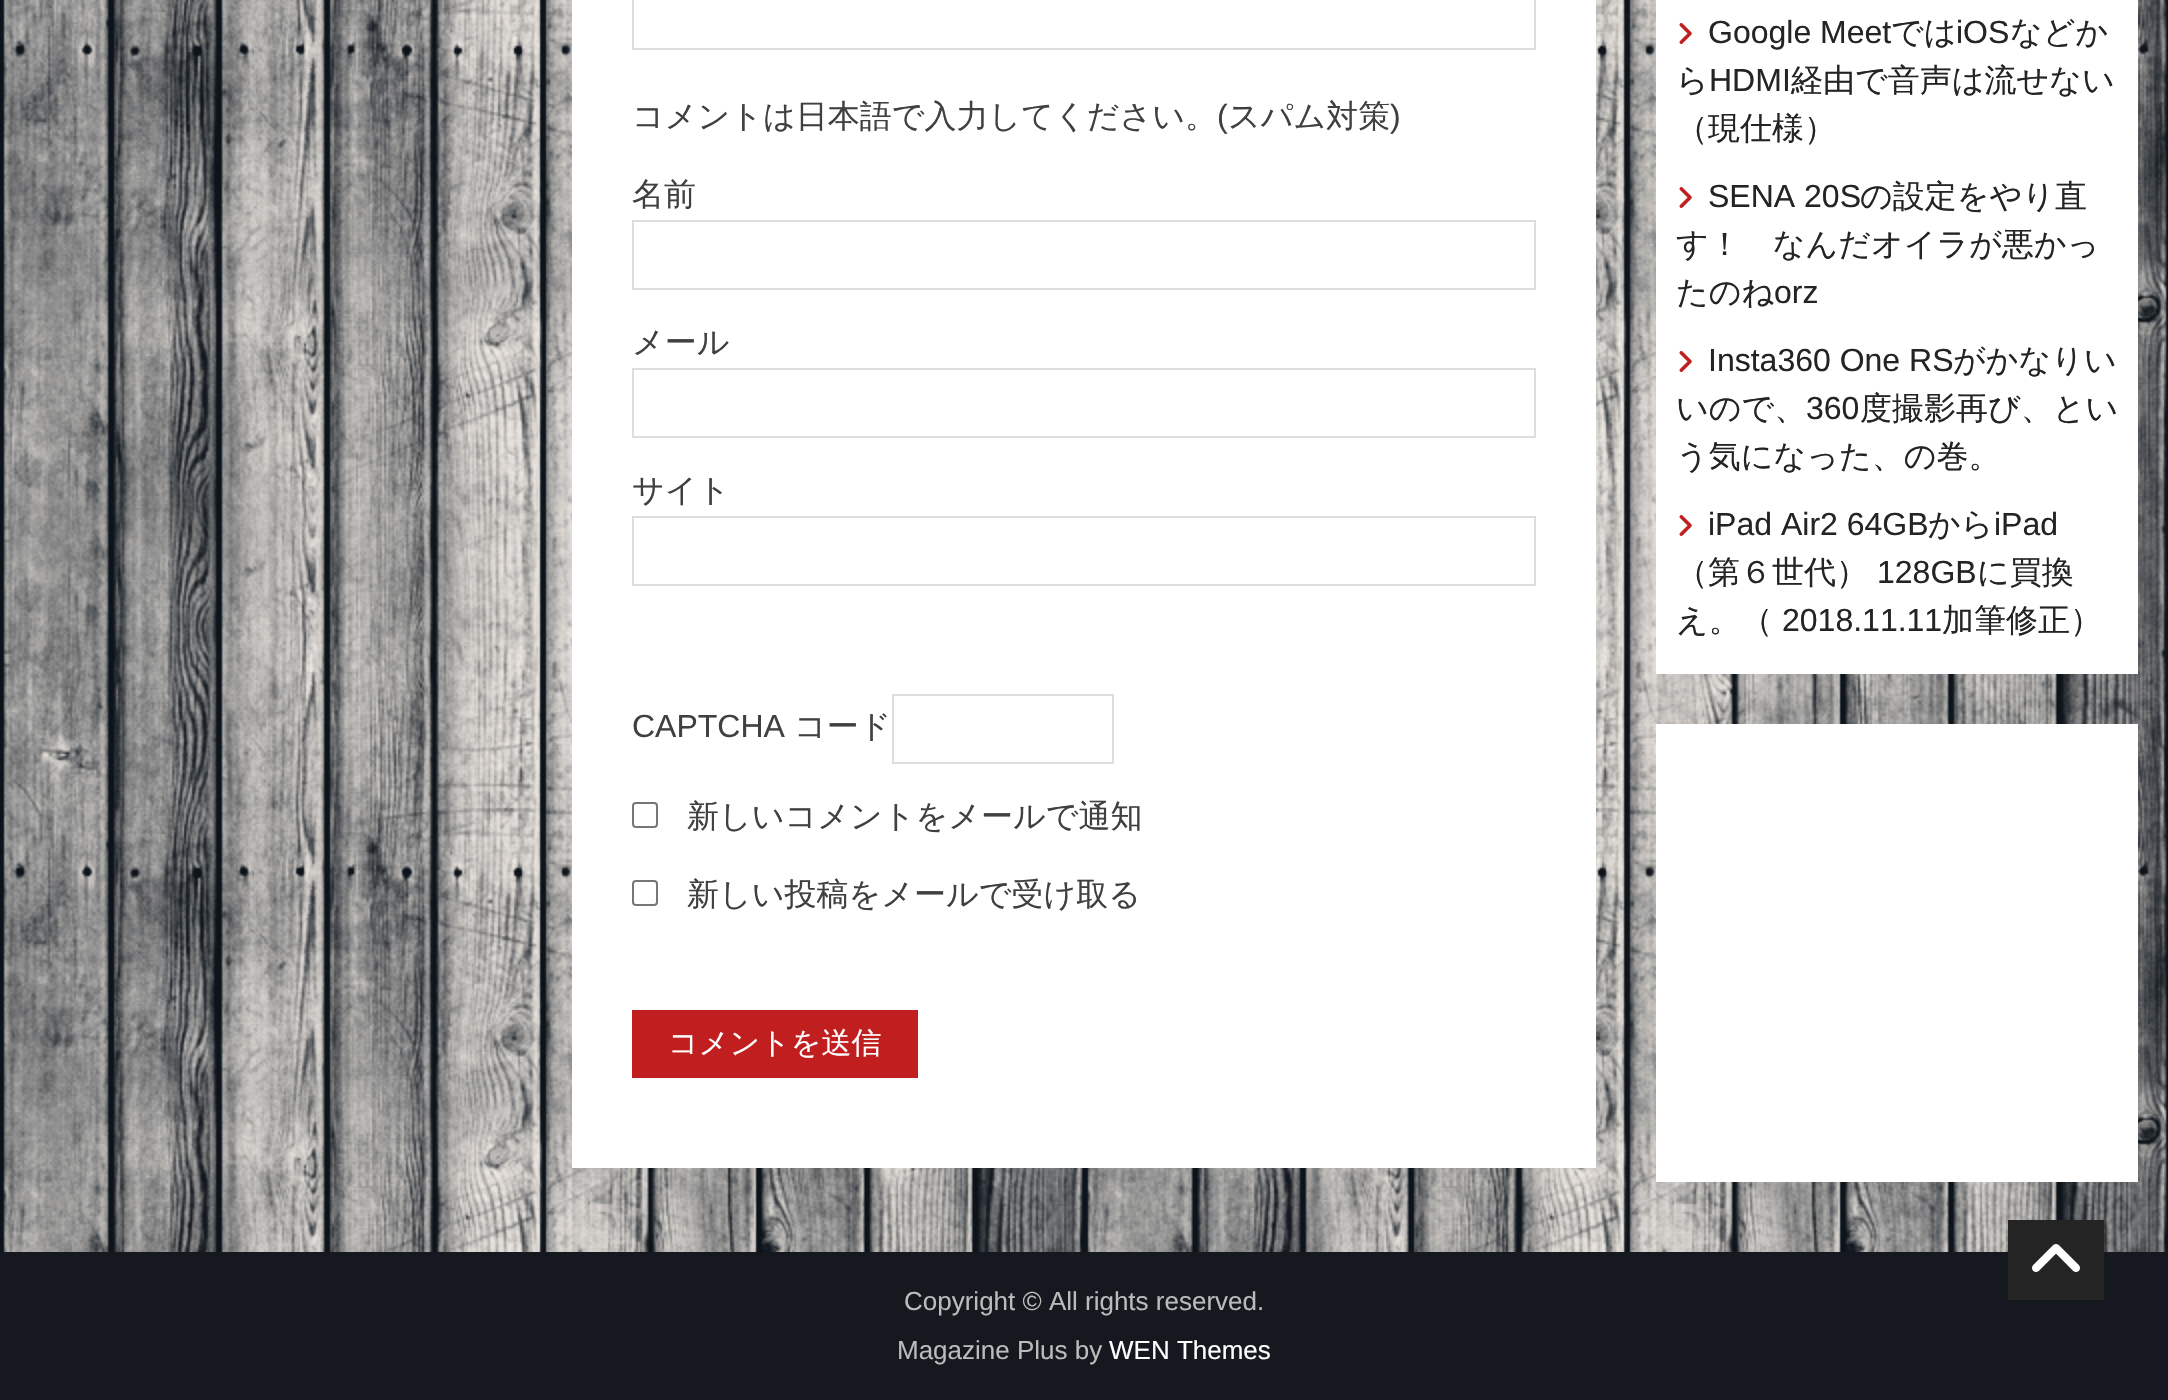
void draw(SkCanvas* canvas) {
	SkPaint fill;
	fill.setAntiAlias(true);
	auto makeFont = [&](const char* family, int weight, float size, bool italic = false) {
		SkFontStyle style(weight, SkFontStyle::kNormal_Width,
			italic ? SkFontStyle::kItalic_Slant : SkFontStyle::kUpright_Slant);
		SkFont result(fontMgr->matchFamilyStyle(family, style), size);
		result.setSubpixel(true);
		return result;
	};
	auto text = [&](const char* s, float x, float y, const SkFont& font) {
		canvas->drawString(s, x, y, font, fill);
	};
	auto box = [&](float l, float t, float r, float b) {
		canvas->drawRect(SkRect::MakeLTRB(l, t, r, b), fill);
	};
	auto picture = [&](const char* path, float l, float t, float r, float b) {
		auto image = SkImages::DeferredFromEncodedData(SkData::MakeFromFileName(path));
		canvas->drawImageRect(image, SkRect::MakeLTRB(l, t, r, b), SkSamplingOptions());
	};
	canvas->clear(0xFFFFFFFF);
	picture("image0.png", 0, 0, 2168, 1252);
	fill.setColor(0xFFFFFFFF);
	box(572, 0, 1596, 1168);
	fill.setStyle(SkPaint::kStroke_Style);
	fill.setStrokeWidth(2);
	fill.setColor(0xFFDDDDDD);
	canvas->drawRect(SkRect::MakeLTRB(633, -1, 1535, 49), fill);
	canvas->drawRect(SkRect::MakeLTRB(633, 221, 1535, 289), fill);
	canvas->drawRect(SkRect::MakeLTRB(633, 369, 1535, 437), fill);
	canvas->drawRect(SkRect::MakeLTRB(633, 517, 1535, 585), fill);
	canvas->drawRect(SkRect::MakeLTRB(893, 695, 1113, 763), fill);
	fill.setColor(0xFF767676);
	canvas->drawRoundRect(SkRect::MakeLTRB(633, 803, 657, 827), 3, 3, fill);
	canvas->drawRoundRect(SkRect::MakeLTRB(633, 881, 657, 905), 3, 3, fill);
	fill.setStyle(SkPaint::kFill_Style);
	fill.setColor(0xFFC11F1F);
	box(632, 1010, 918, 1078);
	fill.setColor(0xFFFFFFFF);
	box(1656, 0, 2138, 674);
	picture("image1.png", 1679, 23, 1692, 44);
	picture("image1.png", 1679, 187, 1692, 208);
	picture("image1.png", 1679, 351, 1692, 372);
	picture("image1.png", 1679, 515, 1692, 536);
	box(1656, 724, 2138, 1182);
	fill.setColor(0xFF15181F);
	box(0, 1252, 2168, 1400);
	fill.setColor(0xFF242424);
	box(2008, 1220, 2104, 1300);
	picture("image2.png", 2032, 1244, 2080, 1272);
	auto font1 = makeFont("WenQuanYi Zen Hei", 500, 32);
	fill.setColor(0xFF404040);
	text("コメントは日本語で入力してください。", 632, 127, font1);
	auto font2 = makeFont("Liberation Sans", 400, 32);
	text("(", 1217, 127, font2);
	text("スパム対策", 1228, 127, font1);
	text(")", 1390, 127, font2);
	text("名前", 632, 205, font1);
	text("メール", 632, 353, font1);
	text("サイト", 632, 501, font1);
	text("CAPTCHA", 632, 737, font2);
	text("コード", 794, 737, font1);
	text("新しいコメントをメールで通知", 687, 827, font1);
	text("新しい投稿をメールで受け取る", 687, 905, font1);
	auto font3 = makeFont("WenQuanYi Zen Hei", 500, 30);
	fill.setColor(0xFFFFFFFF);
	text("コメントを送信", 668, 1053, font3);
	fill.setColor(0xFF242424);
	text("Google Meet", 1708, 43, font2);
	text("では", 1891, 43, font1);
	text("iOS", 1956, 43, font2);
	text("などか", 2010, 43, font1);
	text("ら", 1676, 91, font1);
	text("HDMI", 1709, 91, font2);
	text("経由で音声は流せない", 1791, 91, font1);
	text("（現仕様）", 1676, 139, font1);
	text("SENA 20S", 1708, 207, font2);
	text("の設定をやり直", 1860, 207, font1);
	text("す！　なんだオイラが悪かっ", 1676, 255, font1);
	text("たのね", 1676, 303, font1);
	text("orz", 1774, 303, font2);
	text("Insta360 One RS", 1708, 371, font2);
	text("がかなりい", 1953, 371, font1);
	text("いので、", 1676, 419, font1);
	text("360", 1806, 419, font2);
	text("度撮影再び、とい", 1860, 419, font1);
	text("う気になった、の巻。", 1676, 467, font1);
	text("iPad Air2 64GB", 1708, 535, font2);
	text("から", 1928, 535, font1);
	text("iPad", 1994, 535, font2);
	text("（第６世代）", 1676, 583, font1);
	text("128GB", 1877, 583, font2);
	text("に買換", 1977, 583, font1);
	text("え。（", 1676, 631, font1);
	text("2018.11.11", 1782, 631, font2);
	text("加筆修正）", 1942, 631, font1);
	auto font4 = makeFont("Liberation Sans", 400, 26);
	fill.setColor(0xFFBBBBBB);
	text("Copyright © All rights reserved.", 904, 1310, font4);
	text("Magazine Plus by", 897, 1359, font4);
	fill.setColor(0xFFFFFFFF);
	text("WEN Themes", 1109, 1359, font4);
}
